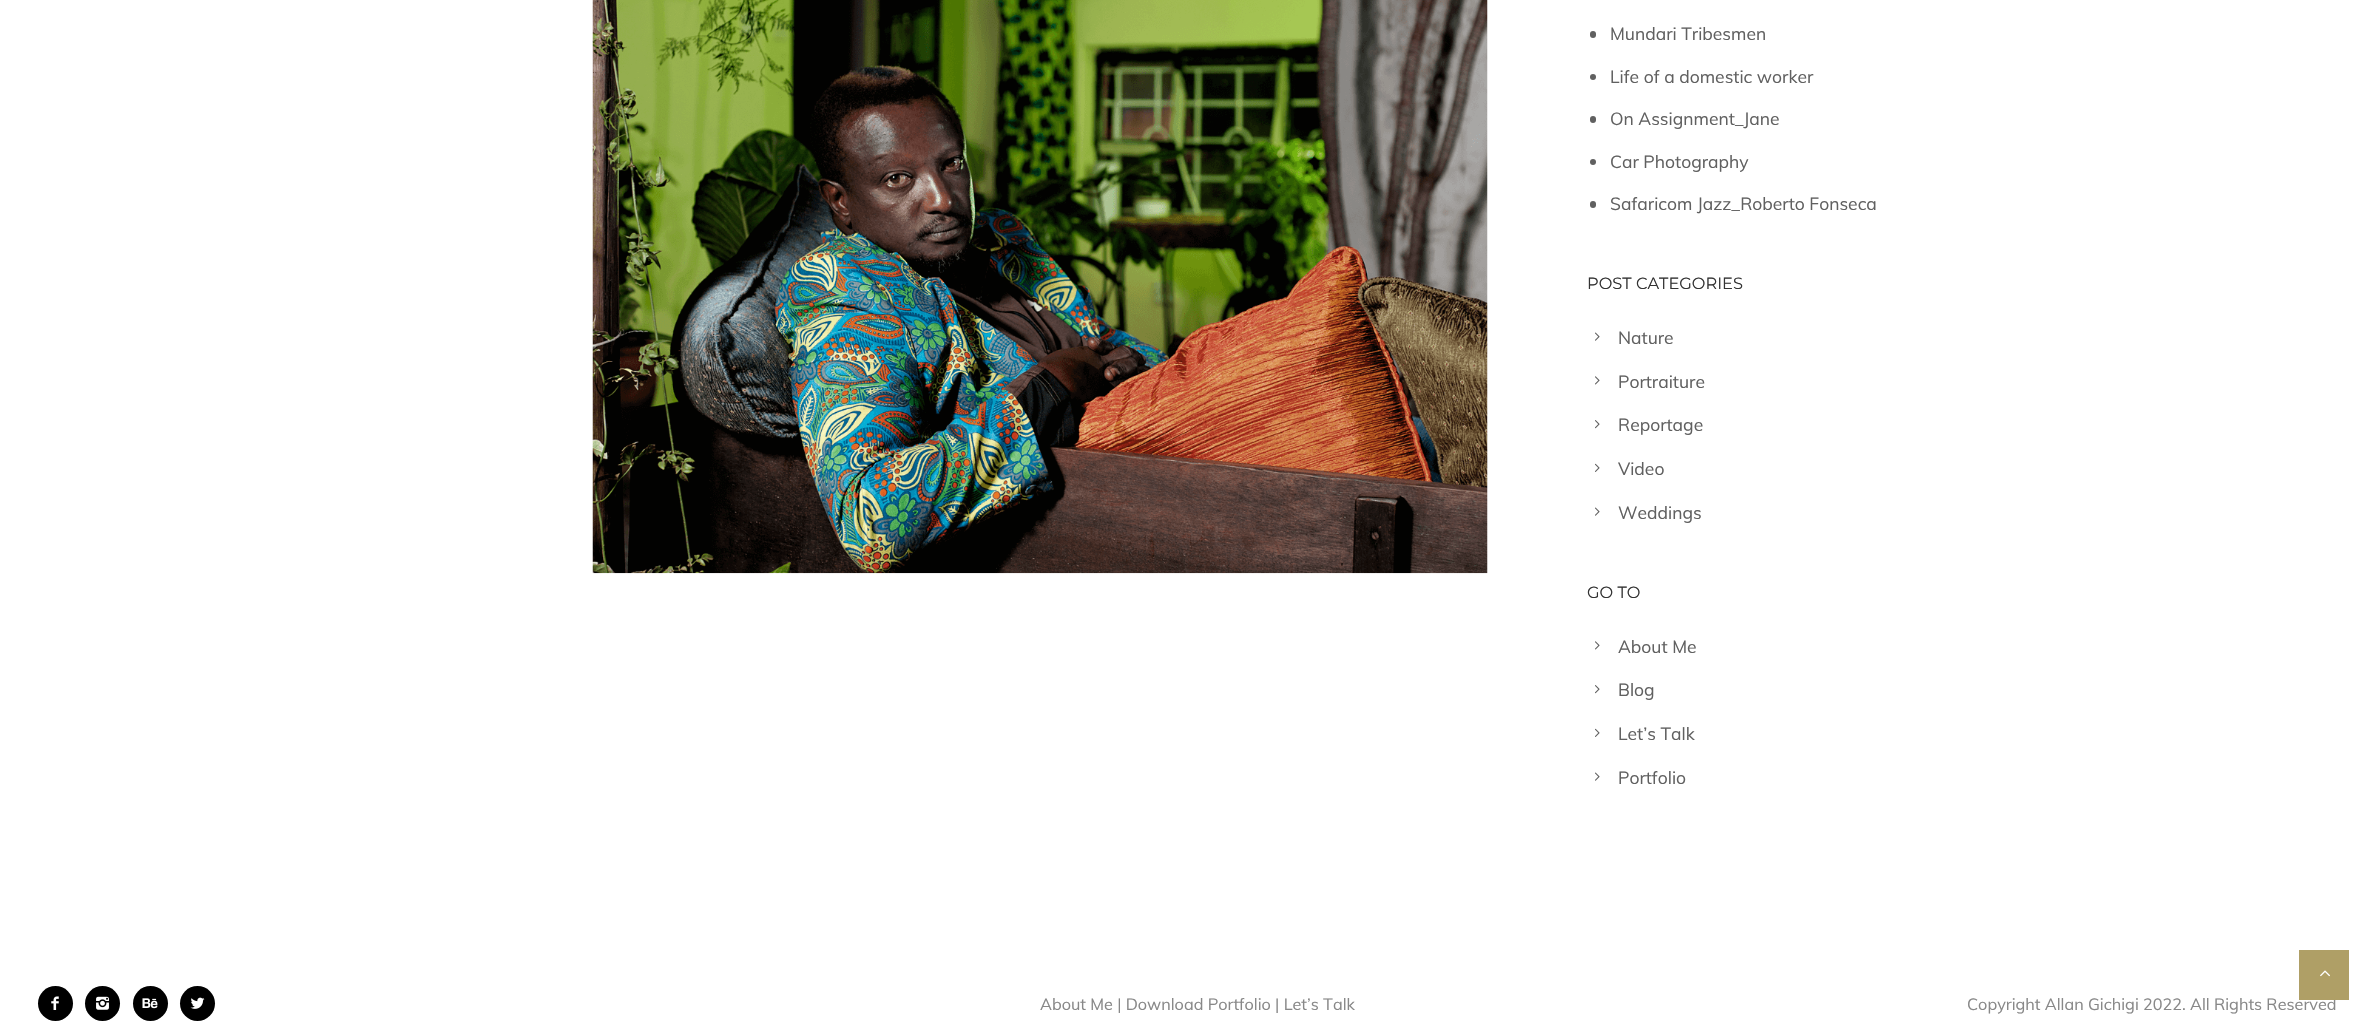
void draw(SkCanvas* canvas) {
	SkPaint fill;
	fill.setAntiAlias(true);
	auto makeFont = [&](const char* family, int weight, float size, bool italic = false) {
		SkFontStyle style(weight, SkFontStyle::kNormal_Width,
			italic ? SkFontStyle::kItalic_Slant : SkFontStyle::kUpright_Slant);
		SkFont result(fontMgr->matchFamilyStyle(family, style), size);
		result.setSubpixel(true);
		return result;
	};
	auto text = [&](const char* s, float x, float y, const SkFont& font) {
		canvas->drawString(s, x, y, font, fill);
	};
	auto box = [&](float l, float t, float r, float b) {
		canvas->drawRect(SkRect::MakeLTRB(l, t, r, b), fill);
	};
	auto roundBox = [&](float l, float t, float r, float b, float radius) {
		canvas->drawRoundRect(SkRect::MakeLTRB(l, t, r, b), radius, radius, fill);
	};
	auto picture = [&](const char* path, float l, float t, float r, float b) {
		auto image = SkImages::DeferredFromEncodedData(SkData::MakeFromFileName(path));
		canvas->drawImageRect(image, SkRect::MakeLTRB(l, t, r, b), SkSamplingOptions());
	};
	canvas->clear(0xFFFFFFFF);
	picture("image0.png", 592, 0, 1488, 574);
	fill.setColor(0xFF606060);
	roundBox(1590, 31, 1596, 38, 3);
	canvas->drawCircle(1593, 77, 3, fill);
	roundBox(1590, 116, 1596, 123, 3);
	canvas->drawCircle(1593, 162, 3, fill);
	roundBox(1590, 201, 1596, 208, 3);
	picture("image1.png", 1595, 332, 1600, 341);
	picture("image2.png", 1595, 376, 1600, 385);
	picture("image3.png", 1595, 420, 1600, 429);
	picture("image4.png", 1595, 463, 1600, 472);
	picture("image1.png", 1595, 507, 1600, 516);
	picture("image2.png", 1595, 641, 1600, 650);
	picture("image3.png", 1595, 685, 1600, 694);
	picture("image4.png", 1595, 728, 1600, 737);
	picture("image1.png", 1595, 772, 1600, 781);
	fill.setColor(0xFF000000);
	canvas->drawCircle(55.5f, 1003.5f, 17.5f, fill);
	picture("image5.png", 51, 996, 59, 1010);
	canvas->drawCircle(102.5f, 1003.5f, 17.5f, fill);
	picture("image6.png", 96, 996, 109, 1010);
	canvas->drawCircle(150.5f, 1003.5f, 17.5f, fill);
	picture("image7.png", 142, 998, 158, 1009);
	canvas->drawCircle(197.5f, 1003.5f, 17.5f, fill);
	picture("image8.png", 190, 997, 205, 1009);
	auto font1 = makeFont("Muli", 400, 17.5f);
	fill.setColor(0xFF606060);
	text("Mundari Tribesmen", 1610, 40, font1);
	text("Life of a domestic worker", 1610, 83, font1);
	text("On Assignment_Jane", 1610, 125, font1);
	text("Car Photography", 1610, 168, font1);
	text("Safaricom Jazz_Roberto Fonseca", 1610, 210, font1);
	auto font2 = makeFont("Montserrat", 400, 16.25f);
	fill.setColor(0xFF333333);
	text("POST CATEGORIES", 1587, 289, font2);
	fill.setColor(0xFF606060);
	text("Nature", 1618, 344, font1);
	text("Portraiture", 1618, 388, font1);
	text("Reportage", 1618, 431, font1);
	text("Video", 1618, 475, font1);
	text("Weddings", 1618, 519, font1);
	fill.setColor(0xFF333333);
	text("GO TO", 1587, 598, font2);
	fill.setColor(0xFF606060);
	text("About Me", 1618, 653, font1);
	text("Blog", 1618, 696, font1);
	text("Let’s Talk", 1618, 740, font1);
	text("Portfolio", 1618, 784, font1);
	auto font3 = makeFont("Muli", 400, 16.25f);
	fill.setColor(0xFF888888);
	text("About Me | Download Portfolio | Let’s Talk", 1040, 1010, font3);
	text("Copyright Allan Gichigi 2022. All Rights Reserved", 1967, 1010, font3);
	fill.setColor(0xFFAF9F66);
	box(2299, 950, 2349, 1000);
	picture("image9.png", 2320, 970, 2330, 977);
}
